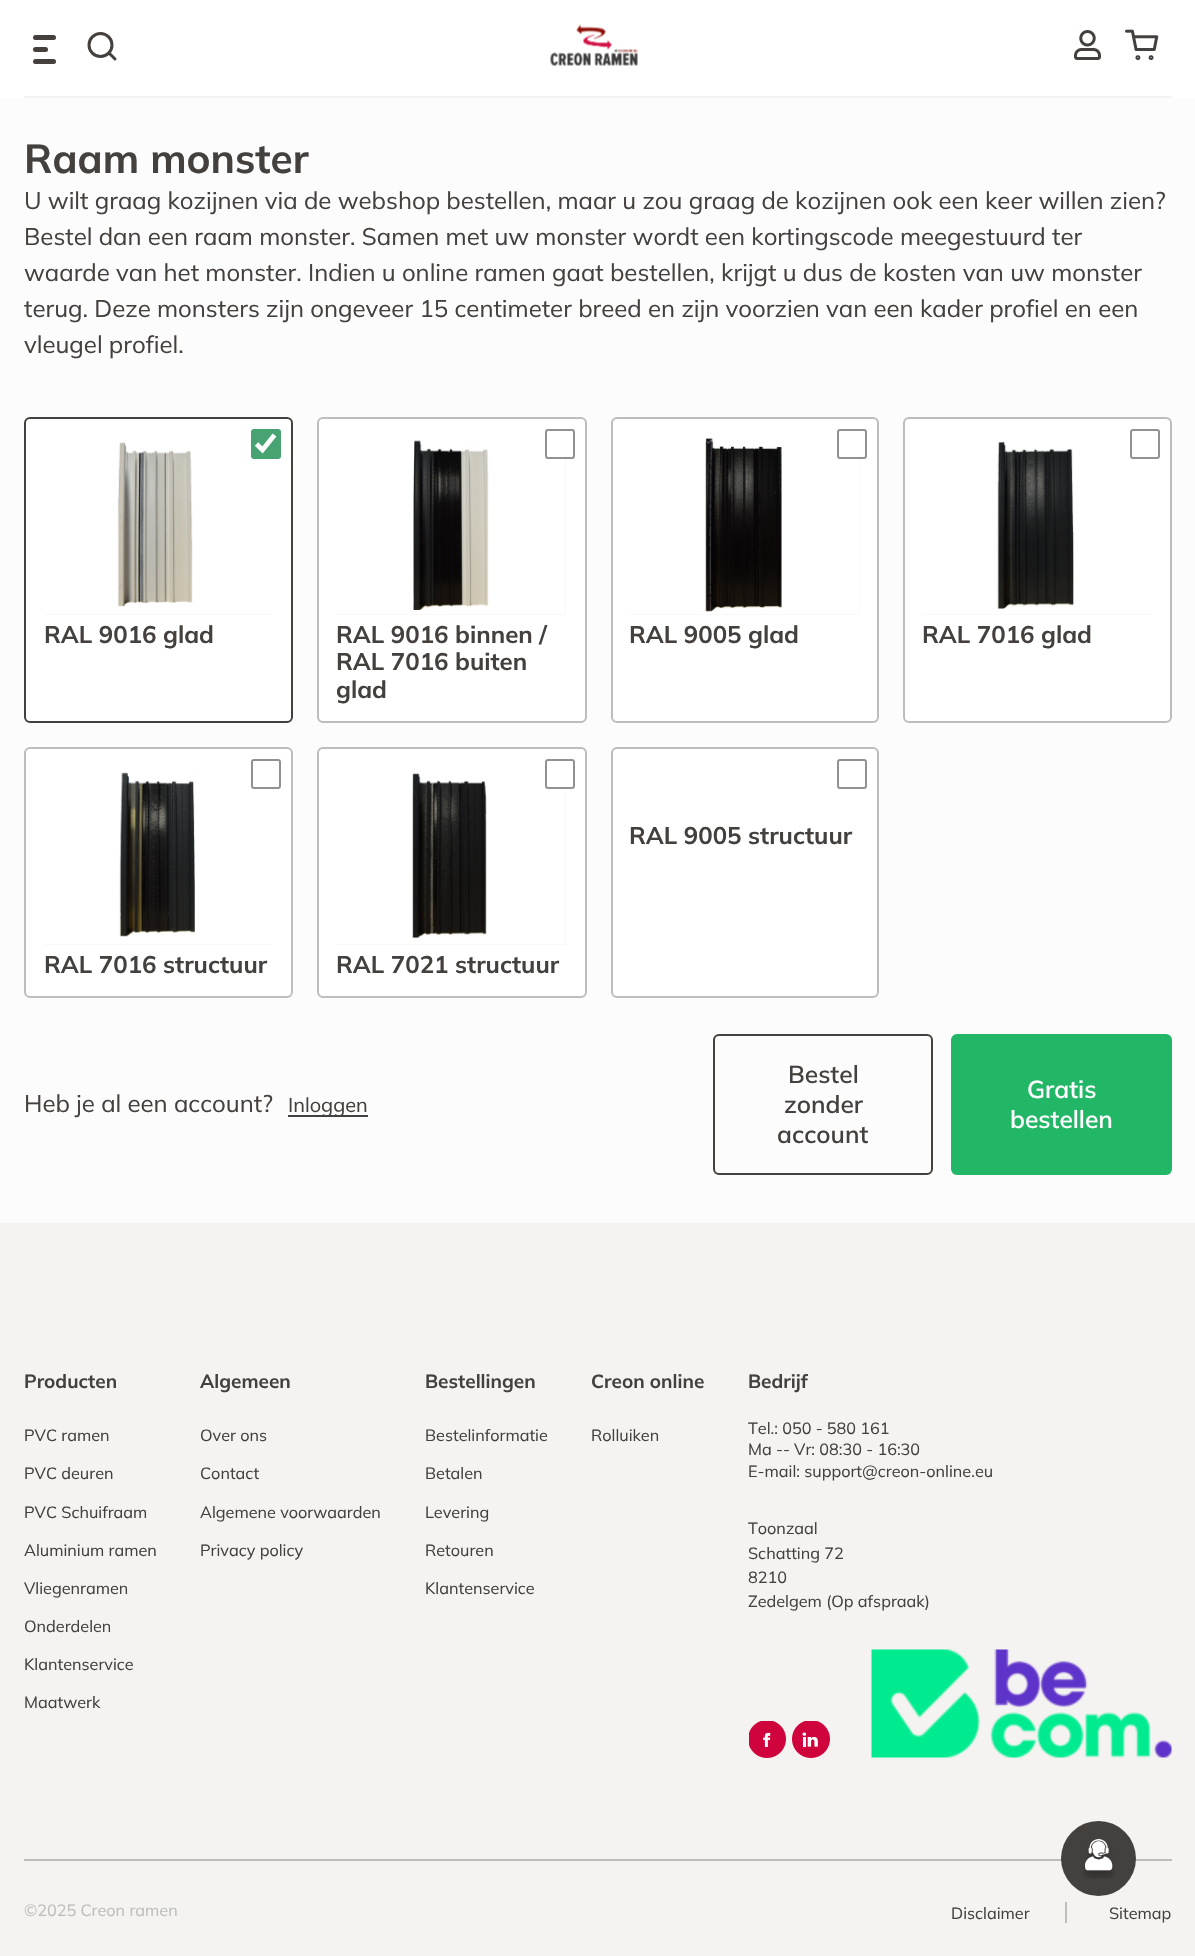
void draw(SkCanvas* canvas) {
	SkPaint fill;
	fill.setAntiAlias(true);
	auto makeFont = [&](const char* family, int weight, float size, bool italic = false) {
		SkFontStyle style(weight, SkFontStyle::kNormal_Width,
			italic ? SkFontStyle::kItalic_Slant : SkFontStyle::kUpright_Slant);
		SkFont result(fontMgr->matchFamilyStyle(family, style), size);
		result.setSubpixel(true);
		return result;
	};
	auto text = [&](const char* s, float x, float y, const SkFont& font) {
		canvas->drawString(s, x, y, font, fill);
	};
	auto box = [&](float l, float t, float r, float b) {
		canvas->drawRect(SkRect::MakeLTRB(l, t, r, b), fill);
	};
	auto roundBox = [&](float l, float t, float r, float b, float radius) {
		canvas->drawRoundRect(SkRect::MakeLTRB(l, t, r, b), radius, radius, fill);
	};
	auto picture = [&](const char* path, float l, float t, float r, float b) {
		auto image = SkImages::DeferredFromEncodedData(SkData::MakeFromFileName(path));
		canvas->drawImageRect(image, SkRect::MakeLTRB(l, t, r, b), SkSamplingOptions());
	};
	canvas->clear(0xFFFCFCFC);
	fill.setColor(0xFFFFFFFF);
	box(0, 0, 1195, 98);
	fill.setColor(0xFFF5F3F1);
	box(24, 96, 1172, 98);
	fill.setColor(0xFF44403E);
	roundBox(33, 47, 48, 52, 2.5f);
	roundBox(33, 35, 56, 40, 2.5f);
	roundBox(33, 59, 56, 64, 2.5f);
	fill.setStyle(SkPaint::kStroke_Style);
	fill.setStrokeWidth(3);
	canvas->drawCircle(100.5f, 45, 11.5f, fill);
	fill.setStrokeCap(SkPaint::kRound_Cap);
	canvas->drawPath(SkPathBuilder().moveTo(115, 59).lineTo(109, 53).detach(), fill);
	picture("image0.png", 550, 24, 638, 66);
	picture("image1.png", 1074, 30, 1101, 60);
	picture("image2.png", 1125, 29, 1159, 61);
	fill.setStyle(SkPaint::kFill_Style);
	fill.setColor(0xFFFFFFFF);
	canvas->drawRoundRect(SkRect::MakeLTRB(25, 418, 292, 722), 5, 5, fill);
	fill.setStyle(SkPaint::kStroke_Style);
	fill.setStrokeWidth(2);
	fill.setStrokeCap(SkPaint::kButt_Cap);
	fill.setColor(0xFF44403E);
	canvas->drawRoundRect(SkRect::MakeLTRB(25, 418, 292, 722), 5, 5, fill);
	picture("image3.png", 44, 437, 273, 614);
	fill.setStyle(SkPaint::kFill_Style);
	fill.setColor(0xFF48A372);
	roundBox(251, 429, 281, 459, 3);
	fill.setStyle(SkPaint::kStroke_Style);
	fill.setStrokeWidth(4.8f);
	fill.setColor(0xFFFFFFFF);
	canvas->drawPath(SkPathBuilder().moveTo(256.5f, 444).lineTo(262.5f, 450).lineTo(274.5f, 435).detach(), fill);
	fill.setStyle(SkPaint::kFill_Style);
	fill.setColor(0xFFFAF9F8);
	box(44, 614, 273, 615);
	fill.setColor(0xFFFFFFFF);
	canvas->drawRoundRect(SkRect::MakeLTRB(318, 418, 586, 722), 5, 5, fill);
	fill.setStyle(SkPaint::kStroke_Style);
	fill.setStrokeWidth(2);
	fill.setColor(0xFFBDBDBD);
	canvas->drawRoundRect(SkRect::MakeLTRB(318, 418, 586, 722), 5, 5, fill);
	fill.setStyle(SkPaint::kFill_Style);
	fill.setColor(0xFFFAF9F8);
	box(336, 437, 566, 615);
	picture("image4.png", 336, 437, 565, 614);
	fill.setColor(0xCCFFFFFF);
	canvas->drawRoundRect(SkRect::MakeLTRB(546, 430, 574, 458), 2, 2, fill);
	fill.setStyle(SkPaint::kStroke_Style);
	fill.setColor(0xFF919191);
	canvas->drawRoundRect(SkRect::MakeLTRB(546, 430, 574, 458), 2, 2, fill);
	fill.setStyle(SkPaint::kFill_Style);
	fill.setColor(0xFFFFFFFF);
	canvas->drawRoundRect(SkRect::MakeLTRB(612, 418, 878, 722), 5, 5, fill);
	fill.setStyle(SkPaint::kStroke_Style);
	fill.setColor(0xFFBDBDBD);
	canvas->drawRoundRect(SkRect::MakeLTRB(612, 418, 878, 722), 5, 5, fill);
	fill.setStyle(SkPaint::kFill_Style);
	fill.setColor(0xFFFAF9F8);
	box(630, 437, 860, 615);
	picture("image5.png", 630, 437, 859, 614);
	fill.setColor(0xCCFFFFFF);
	canvas->drawRoundRect(SkRect::MakeLTRB(838, 430, 866, 458), 2, 2, fill);
	fill.setStyle(SkPaint::kStroke_Style);
	fill.setColor(0xFF919191);
	canvas->drawRoundRect(SkRect::MakeLTRB(838, 430, 866, 458), 2, 2, fill);
	fill.setStyle(SkPaint::kFill_Style);
	fill.setColor(0xFFFFFFFF);
	canvas->drawRoundRect(SkRect::MakeLTRB(904, 418, 1171, 722), 5, 5, fill);
	fill.setStyle(SkPaint::kStroke_Style);
	fill.setColor(0xFFBDBDBD);
	canvas->drawRoundRect(SkRect::MakeLTRB(904, 418, 1171, 722), 5, 5, fill);
	picture("image6.png", 923, 437, 1152, 614);
	fill.setColor(0xFF919191);
	canvas->drawRoundRect(SkRect::MakeLTRB(1131, 430, 1159, 458), 2, 2, fill);
	fill.setStyle(SkPaint::kFill_Style);
	fill.setColor(0xFFFAF9F8);
	box(923, 614, 1152, 615);
	fill.setColor(0xFFFFFFFF);
	canvas->drawRoundRect(SkRect::MakeLTRB(612, 748, 878, 997), 5, 5, fill);
	fill.setStyle(SkPaint::kStroke_Style);
	fill.setColor(0xFFBDBDBD);
	canvas->drawRoundRect(SkRect::MakeLTRB(612, 748, 878, 997), 5, 5, fill);
	fill.setColor(0xFF919191);
	canvas->drawRoundRect(SkRect::MakeLTRB(838, 760, 866, 788), 2, 2, fill);
	fill.setStyle(SkPaint::kFill_Style);
	fill.setColor(0xFFFFFFFF);
	canvas->drawRoundRect(SkRect::MakeLTRB(25, 748, 292, 997), 5, 5, fill);
	fill.setStyle(SkPaint::kStroke_Style);
	fill.setColor(0xFFBDBDBD);
	canvas->drawRoundRect(SkRect::MakeLTRB(25, 748, 292, 997), 5, 5, fill);
	picture("image7.png", 44, 767, 273, 944);
	fill.setColor(0xFF919191);
	canvas->drawRoundRect(SkRect::MakeLTRB(252, 760, 280, 788), 2, 2, fill);
	fill.setStyle(SkPaint::kFill_Style);
	fill.setColor(0xFFFAF9F8);
	box(44, 944, 273, 945);
	fill.setColor(0xFFFFFFFF);
	canvas->drawRoundRect(SkRect::MakeLTRB(318, 748, 586, 997), 5, 5, fill);
	fill.setStyle(SkPaint::kStroke_Style);
	fill.setColor(0xFFBDBDBD);
	canvas->drawRoundRect(SkRect::MakeLTRB(318, 748, 586, 997), 5, 5, fill);
	fill.setStyle(SkPaint::kFill_Style);
	fill.setColor(0xFFFAF9F8);
	box(336, 767, 566, 945);
	picture("image8.png", 336, 767, 565, 944);
	fill.setColor(0xCCFFFFFF);
	canvas->drawRoundRect(SkRect::MakeLTRB(546, 760, 574, 788), 2, 2, fill);
	fill.setStyle(SkPaint::kStroke_Style);
	fill.setColor(0xFF919191);
	canvas->drawRoundRect(SkRect::MakeLTRB(546, 760, 574, 788), 2, 2, fill);
	fill.setStyle(SkPaint::kFill_Style);
	fill.setColor(0xFF44403E);
	box(288, 1115, 368, 1117);
	fill.setStyle(SkPaint::kStroke_Style);
	canvas->drawRoundRect(SkRect::MakeLTRB(714, 1035, 932, 1174), 5, 5, fill);
	fill.setStyle(SkPaint::kFill_Style);
	fill.setColor(0xFF22B767);
	roundBox(951, 1034, 1172, 1175, 6);
	fill.setColor(0xFFF5F3F1);
	box(0, 1223, 1195, 1956);
	picture("image9.png", 749, 1721, 786, 1758);
	picture("image10.png", 792, 1721, 830, 1758);
	picture("image11.png", 871, 1649, 1172, 1758);
	fill.setColor(0xFFBDBDBD);
	box(24, 1859, 1172, 1861);
	fill.setColor(0xFF44403E);
	canvas->drawCircle(1098.5f, 1858.5f, 37.5f, fill);
	picture("image12.png", 1083, 1839, 1115, 1879);
	fill.setColor(0xFFBDBDBD);
	box(1065, 1902, 1067, 1923);
	auto font1 = makeFont("Mulish", 700, 40.5f);
	fill.setColor(0xFF44403E);
	text("Raam monster", 24, 173, font1);
	auto font2 = makeFont("Mulish", 400, 24);
	text("U wilt graag kozijnen via de webshop bestellen, maar u zou graag de kozijnen ook een keer willen zien?", 24, 209, font2);
	text("Bestel dan een raam monster. Samen met uw monster wordt een kortingscode meegestuurd ter", 24, 245, font2);
	text("waarde van het monster. Indien u online ramen gaat bestellen, krijgt u dus de kosten van uw monster", 24, 281, font2);
	text("terug. Deze monsters zijn ongeveer 15 centimeter breed en zijn voorzien van een kader profiel en een", 24, 317, font2);
	text("vleugel profiel.", 24, 353, font2);
	auto font3 = makeFont("Mulish", 700, 24);
	text("RAL 9016 glad", 44, 643, font3);
	text("RAL 9016 binnen /", 336, 643, font3);
	text("RAL 7016 buiten", 336, 670, font3);
	text("glad", 336, 698, font3);
	text("RAL 9005 glad", 629, 643, font3);
	text("RAL 7016 glad", 922, 643, font3);
	text("RAL 9005 structuur", 629, 844, font3);
	text("RAL 7016 structuur", 44, 973, font3);
	text("RAL 7021 structuur", 336, 973, font3);
	text("Heb je al een account?", 24, 1112, font2);
	auto font4 = makeFont("Mulish", 400, 20);
	text("Inloggen", 288, 1112, font4);
	auto font5 = makeFont("Mulish", 600, 24.5f);
	text("Bestel", 788, 1083, font5);
	text("zonder", 784, 1113, font5);
	text("account", 777, 1143, font5);
	fill.setColor(0xFFFFFFFF);
	text("Gratis", 1027, 1098, font5);
	text("bestellen", 1010, 1128, font5);
	auto font6 = makeFont("Mulish", 700, 19);
	fill.setColor(0xFF44403E);
	text("Producten", 24, 1388, font6);
	auto font7 = makeFont("Mulish", 400, 16.25f);
	text("PVC ramen", 24, 1441, font7);
	text("PVC deuren", 24, 1479, font7);
	text("PVC Schuifraam", 24, 1518, font7);
	text("Aluminium ramen", 24, 1556, font7);
	text("Vliegenramen", 24, 1594, font7);
	text("Onderdelen", 24, 1632, font7);
	text("Klantenservice", 24, 1670, font7);
	text("Maatwerk", 24, 1708, font7);
	text("Algemeen", 200, 1388, font6);
	text("Over ons", 200, 1441, font7);
	text("Contact", 200, 1479, font7);
	text("Algemene voorwaarden", 200, 1518, font7);
	text("Privacy policy", 200, 1556, font7);
	text("Bestellingen", 425, 1388, font6);
	text("Bestelinformatie", 425, 1441, font7);
	text("Betalen", 425, 1479, font7);
	text("Levering", 425, 1518, font7);
	text("Retouren", 425, 1556, font7);
	text("Klantenservice", 425, 1594, font7);
	text("Creon online", 591, 1388, font6);
	text("Rolluiken", 591, 1441, font7);
	text("Bedrijf", 748, 1388, font6);
	text("Tel.: 050 - 580 161", 748, 1434, font7);
	text("Ma -- Vr: 08:30 - 16:30", 748, 1455, font7);
	text("E-mail: support@creon-online.eu", 748, 1477, font7);
	text("Toonzaal", 748, 1534, font7);
	text("Schatting 72", 748, 1559, font7);
	text("8210", 748, 1583, font7);
	text("Zedelgem (Op afspraak)", 748, 1607, font7);
	fill.setColor(0xFFBDBDBD);
	text("©2025 Creon ramen", 24, 1916, font7);
	fill.setColor(0xFF44403E);
	text("Disclaimer", 951, 1919, font7);
	text("Sitemap", 1109, 1919, font7);
}
